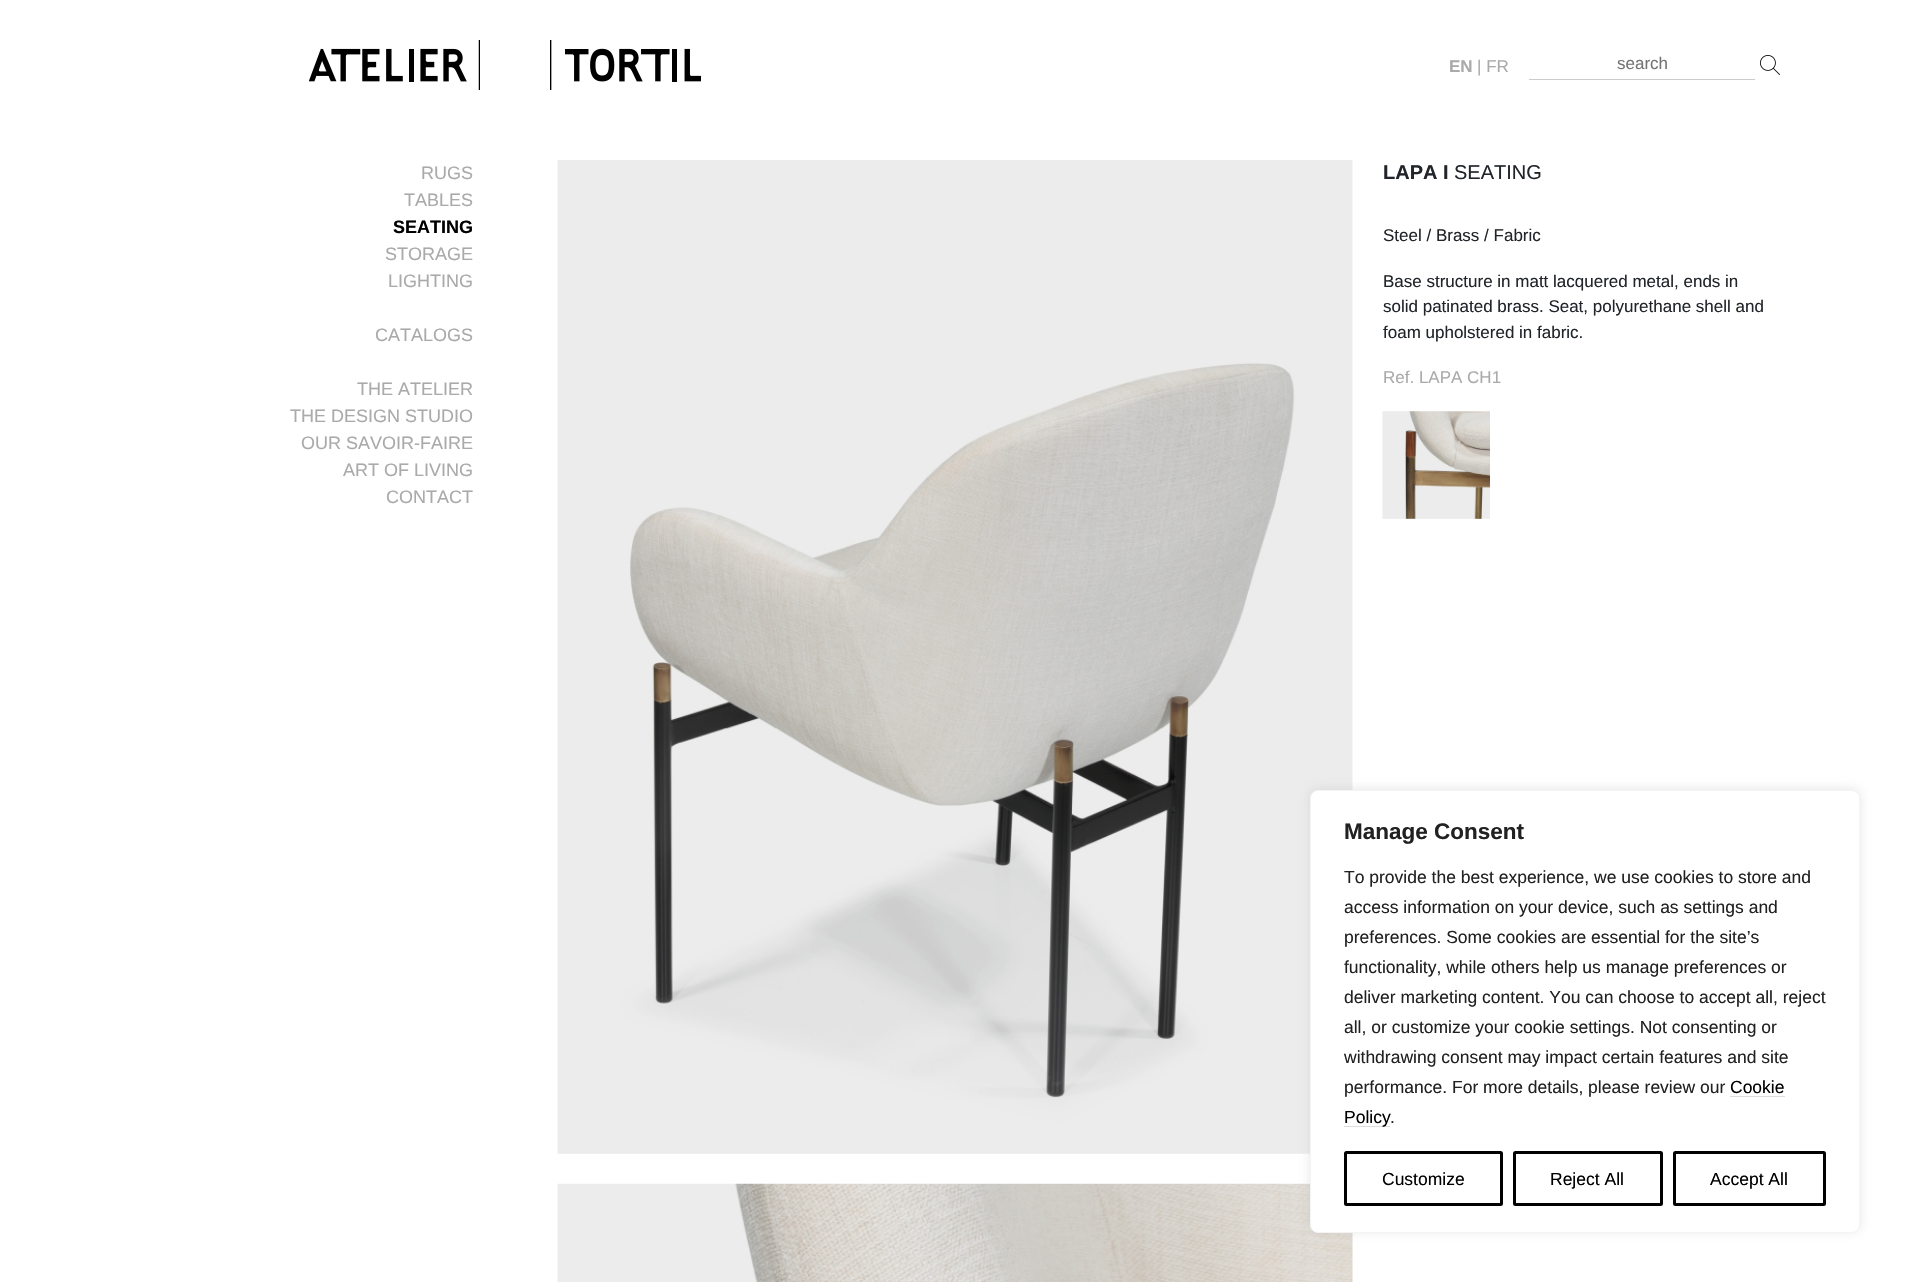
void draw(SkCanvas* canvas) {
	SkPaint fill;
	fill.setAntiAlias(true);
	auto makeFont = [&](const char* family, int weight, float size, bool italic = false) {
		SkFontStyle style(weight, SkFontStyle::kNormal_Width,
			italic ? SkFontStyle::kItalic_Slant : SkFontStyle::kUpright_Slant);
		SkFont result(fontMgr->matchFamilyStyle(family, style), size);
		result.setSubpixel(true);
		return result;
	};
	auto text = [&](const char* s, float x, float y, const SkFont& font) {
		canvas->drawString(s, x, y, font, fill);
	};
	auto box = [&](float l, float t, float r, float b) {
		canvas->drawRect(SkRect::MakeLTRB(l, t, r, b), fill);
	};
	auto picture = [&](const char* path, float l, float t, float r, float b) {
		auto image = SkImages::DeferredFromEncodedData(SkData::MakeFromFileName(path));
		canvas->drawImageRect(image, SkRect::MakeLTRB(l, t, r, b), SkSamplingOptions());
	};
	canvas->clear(0xFFFFFFFF);
	picture("image0.png", 309, 40, 480, 90);
	picture("image1.png", 550, 40, 701, 90);
	fill.setColor(0xFFCCCCCC);
	box(1529, 79, 1755, 80);
	picture("image2.png", 1760, 55, 1780, 75);
	picture("image3.png", 557, 160, 1353, 1154);
	picture("image4.png", 557, 1183, 1353, 1282);
	picture("image5.png", 1382, 411, 1490, 519);
	fill.setColor(0x4DACABAB);
	fill.setMaskFilter(SkMaskFilter::MakeBlur(kNormal_SkBlurStyle, 6));
	canvas->drawRoundRect(SkRect::MakeLTRB(1310, 789, 1860, 1231), 8, 8, fill);
	fill.setMaskFilter(nullptr);
	fill.setColor(0xFFFFFFFF);
	canvas->drawRoundRect(SkRect::MakeLTRB(1310.5f, 790.5f, 1859.5f, 1232.5f), 7.5f, 7.5f, fill);
	fill.setStyle(SkPaint::kStroke_Style);
	fill.setStrokeWidth(1);
	fill.setColor(0xFFF4F4F4);
	canvas->drawRoundRect(SkRect::MakeLTRB(1310.5f, 790.5f, 1859.5f, 1232.5f), 7.5f, 7.5f, fill);
	fill.setStyle(SkPaint::kFill_Style);
	fill.setColor(0xFFDDDDDD);
	box(1730, 1096, 1785, 1097);
	box(1344, 1126, 1390, 1127);
	fill.setStyle(SkPaint::kStroke_Style);
	fill.setStrokeWidth(3);
	fill.setColor(0xFF000000);
	canvas->drawRoundRect(SkRect::MakeLTRB(1345.5f, 1152.5f, 1501.5f, 1204.5f), 1, 1, fill);
	canvas->drawRoundRect(SkRect::MakeLTRB(1514.5f, 1152.5f, 1661.5f, 1204.5f), 1, 1, fill);
	canvas->drawRoundRect(SkRect::MakeLTRB(1674.5f, 1152.5f, 1824.5f, 1204.5f), 1, 1, fill);
	auto font1 = makeFont("Liberation Sans", 700, 17);
	fill.setStyle(SkPaint::kFill_Style);
	fill.setColor(0xFFAAAAAA);
	text("EN", 1449, 72, font1);
	auto font2 = makeFont("Liberation Sans", 400, 17);
	text("| FR", 1477, 72, font2);
	fill.setColor(0xFF757575);
	text("search", 1617, 69, font2);
	auto font3 = makeFont("Liberation Sans", 400, 18);
	fill.setColor(0xFFAAAAAA);
	text("RUGS", 421, 179, font3);
	text("TABLES", 404, 206, font3);
	auto font4 = makeFont("Liberation Sans", 700, 18);
	fill.setColor(0xFF000000);
	text("SEATING", 393, 233, font4);
	fill.setColor(0xFFAAAAAA);
	text("STORAGE", 385, 260, font3);
	text("LIGHTING", 388, 287, font3);
	text("CATALOGS", 375, 341, font3);
	text("THE ATELIER", 357, 395, font3);
	text("THE DESIGN STUDIO", 290, 422, font3);
	text("OUR SAVOIR-FAIRE", 301, 449, font3);
	text("ART OF LIVING", 343, 476, font3);
	text("CONTACT", 386, 503, font3);
	auto font5 = makeFont("Liberation Sans", 700, 20);
	fill.setColor(0xFF212529);
	text("LAPA I", 1383, 179, font5);
	auto font6 = makeFont("Liberation Sans", 400, 20);
	text("SEATING", 1454, 179, font6);
	text("Steel / Brass / Fabric", 1383, 241, font2);
	text("Base structure in matt lacquered metal, ends in", 1383, 287, font2);
	text("solid patinated brass. Seat, polyurethane shell and", 1383, 312, font2);
	text("foam upholstered in fabric.", 1383, 338, font2);
	fill.setColor(0xFFAAAAAA);
	text("Ref. LAPA CH1", 1383, 383, font2);
	auto font7 = makeFont("Liberation Sans", 700, 22.5f);
	fill.setColor(0xFF212121);
	text("Manage Consent", 1344, 839, font7);
	auto font8 = makeFont("Liberation Sans", 400, 17.5f);
	text("To provide the best experience, we use cookies to store and", 1344, 883, font8);
	text("access information on your device, such as settings and", 1344, 913, font8);
	text("preferences. Some cookies are essential for the site’s", 1344, 943, font8);
	text("functionality, while others help us manage preferences or", 1344, 973, font8);
	text("deliver marketing content. You can choose to accept all, reject", 1344, 1003, font8);
	text("all, or customize your cookie settings. Not consenting or", 1344, 1033, font8);
	text("withdrawing consent may impact certain features and site", 1344, 1063, font8);
	text("performance. For more details, please review our", 1344, 1093, font8);
	fill.setColor(0xFF000000);
	text("Cookie", 1730, 1093, font8);
	text("Policy", 1344, 1123, font8);
	fill.setColor(0xFF212121);
	text(".", 1390, 1123, font8);
	fill.setColor(0xFF000000);
	text("Customize", 1382, 1185, font8);
	text("Reject All", 1550, 1185, font8);
	text("Accept All", 1710, 1185, font8);
}
